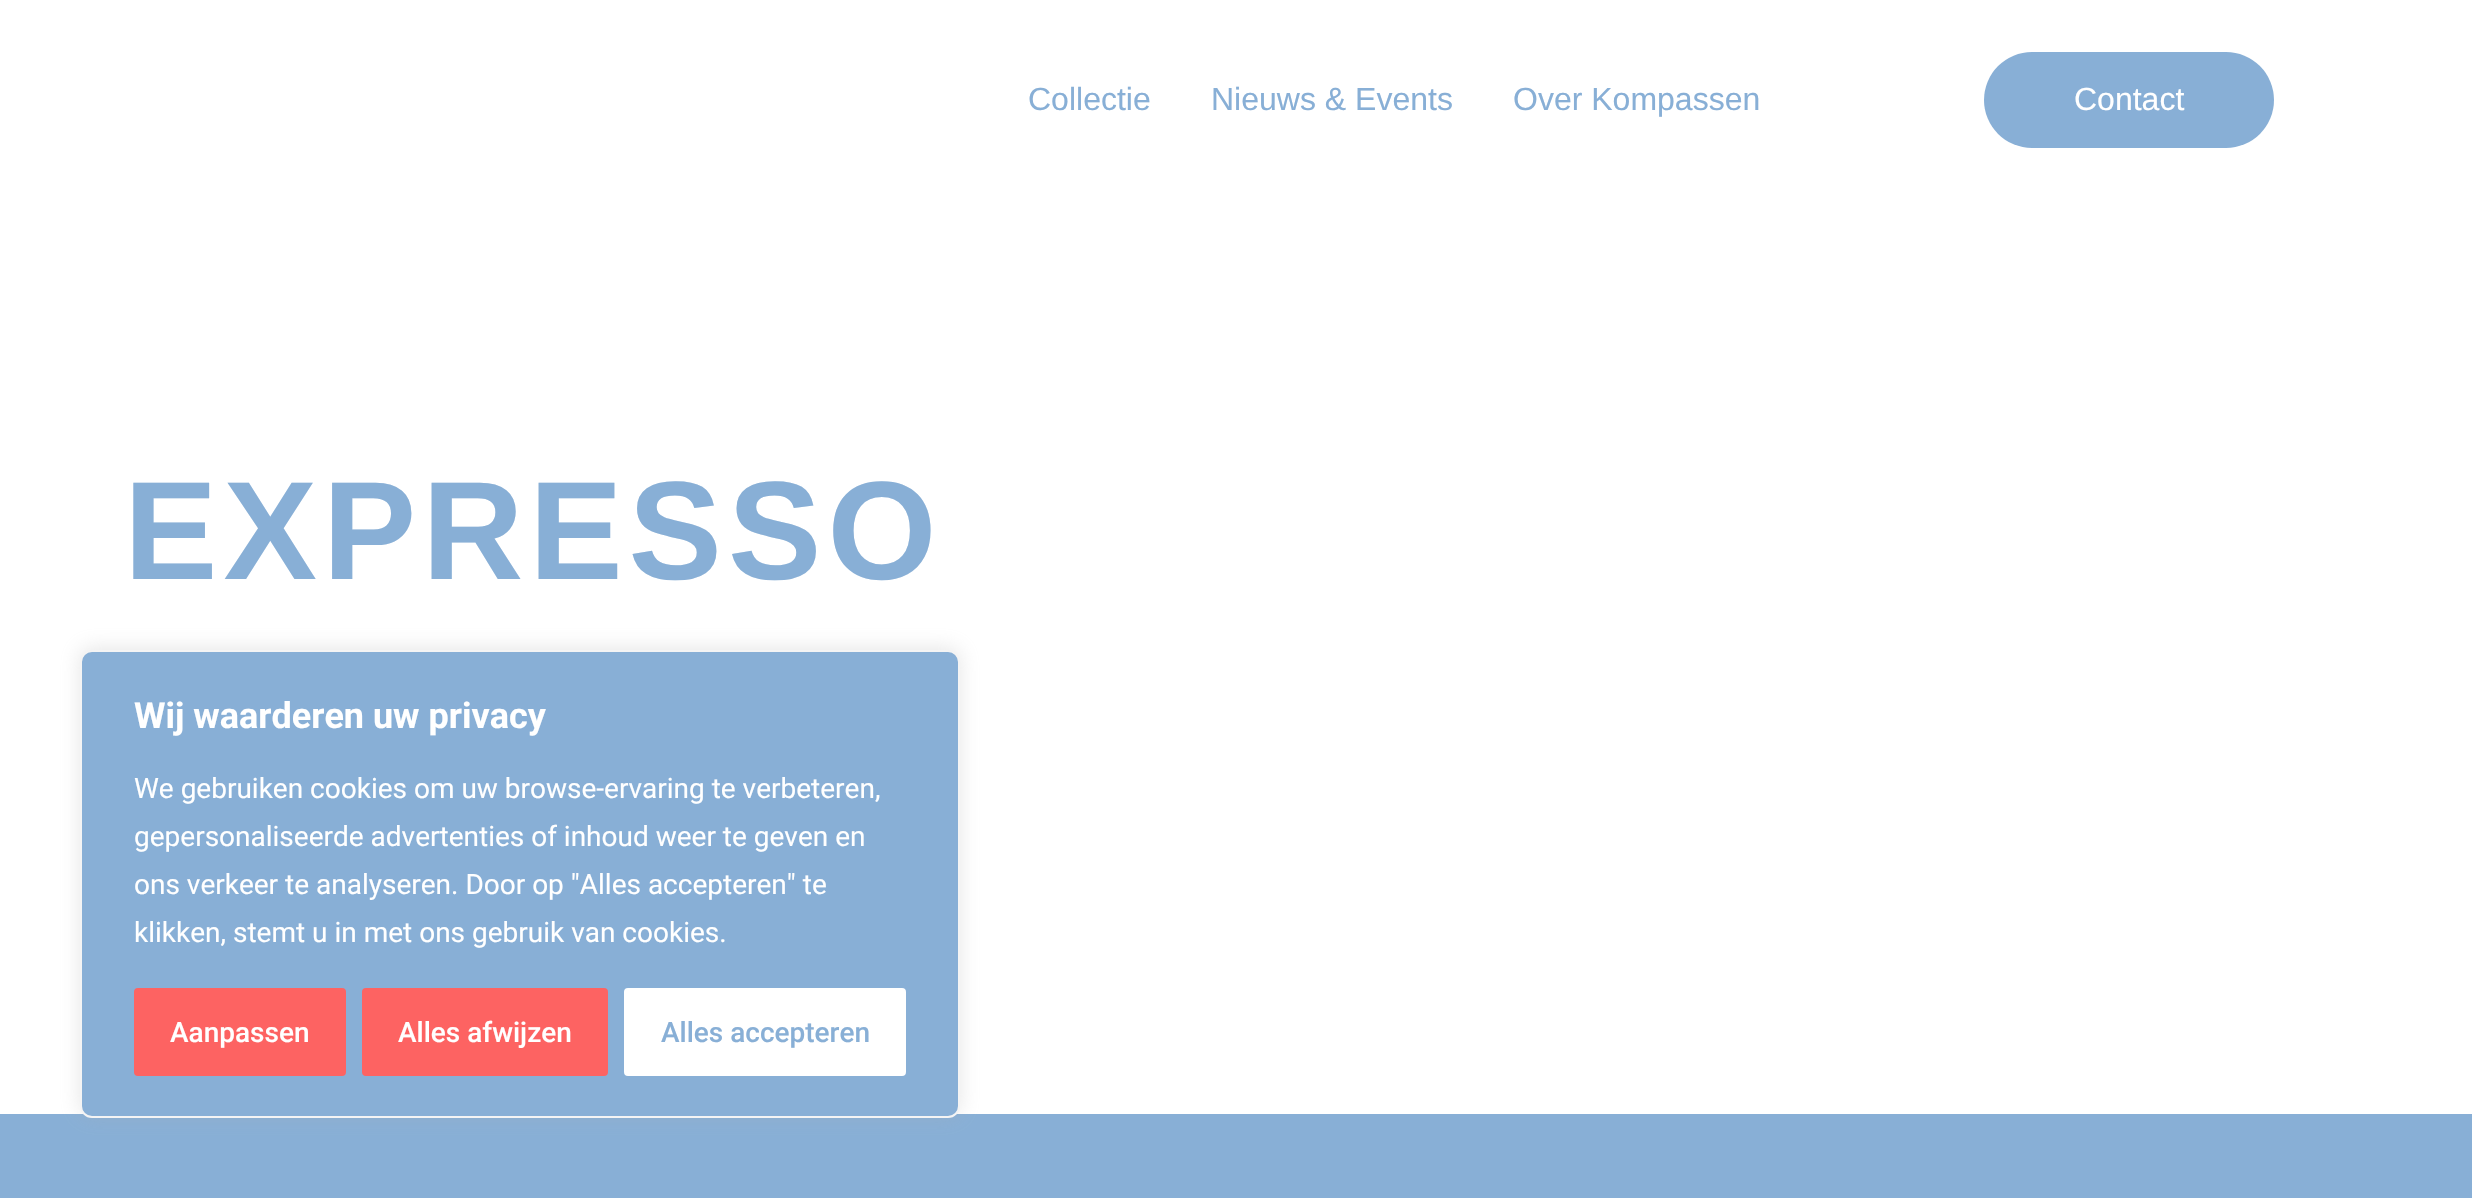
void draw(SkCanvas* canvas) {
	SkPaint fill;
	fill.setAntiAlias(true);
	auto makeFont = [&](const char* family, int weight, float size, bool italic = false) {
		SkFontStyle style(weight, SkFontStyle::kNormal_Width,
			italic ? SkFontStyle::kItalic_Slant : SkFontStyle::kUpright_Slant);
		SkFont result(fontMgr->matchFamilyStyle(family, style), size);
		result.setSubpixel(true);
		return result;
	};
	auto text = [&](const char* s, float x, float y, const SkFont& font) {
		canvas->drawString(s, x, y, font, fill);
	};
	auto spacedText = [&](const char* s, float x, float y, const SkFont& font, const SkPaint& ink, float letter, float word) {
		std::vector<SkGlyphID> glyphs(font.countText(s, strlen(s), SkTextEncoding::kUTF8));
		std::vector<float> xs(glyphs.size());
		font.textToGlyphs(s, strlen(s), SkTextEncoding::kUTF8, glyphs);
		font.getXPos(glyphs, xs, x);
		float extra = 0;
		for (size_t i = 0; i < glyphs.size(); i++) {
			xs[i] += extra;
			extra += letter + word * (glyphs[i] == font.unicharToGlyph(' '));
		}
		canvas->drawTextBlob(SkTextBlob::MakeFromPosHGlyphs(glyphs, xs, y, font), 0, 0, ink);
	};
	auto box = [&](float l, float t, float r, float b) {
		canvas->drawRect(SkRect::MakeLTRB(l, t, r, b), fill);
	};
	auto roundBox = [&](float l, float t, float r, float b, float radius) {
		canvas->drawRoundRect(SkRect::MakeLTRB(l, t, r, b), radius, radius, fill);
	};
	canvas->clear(0xFFFFFFFF);
	fill.setColor(0xFF88AFD6);
	roundBox(1984, 52, 2274, 148, 48);
	box(0, 1114, 2472, 1198);
	fill.setColor(0x4DACABAB);
	fill.setMaskFilter(SkMaskFilter::MakeBlur(kNormal_SkBlurStyle, 10));
	canvas->drawRoundRect(SkRect::MakeLTRB(80, 648, 960, 1116), 12, 12, fill);
	fill.setMaskFilter(nullptr);
	fill.setColor(0xFF88AFD6);
	canvas->drawRoundRect(SkRect::MakeLTRB(81, 651, 959, 1117), 11, 11, fill);
	fill.setStyle(SkPaint::kStroke_Style);
	fill.setStrokeWidth(2);
	fill.setColor(0xFFF4F4F4);
	canvas->drawRoundRect(SkRect::MakeLTRB(81, 651, 959, 1117), 11, 11, fill);
	fill.setStyle(SkPaint::kFill_Style);
	fill.setColor(0xFFFD6362);
	canvas->drawRoundRect(SkRect::MakeLTRB(136, 990, 344, 1074), 2, 2, fill);
	fill.setStyle(SkPaint::kStroke_Style);
	fill.setStrokeWidth(4);
	canvas->drawRoundRect(SkRect::MakeLTRB(136, 990, 344, 1074), 2, 2, fill);
	fill.setStyle(SkPaint::kFill_Style);
	canvas->drawRoundRect(SkRect::MakeLTRB(364, 990, 606, 1074), 2, 2, fill);
	fill.setStyle(SkPaint::kStroke_Style);
	canvas->drawRoundRect(SkRect::MakeLTRB(364, 990, 606, 1074), 2, 2, fill);
	fill.setStyle(SkPaint::kFill_Style);
	fill.setColor(0xFFFFFFFF);
	canvas->drawRoundRect(SkRect::MakeLTRB(626, 990, 904, 1074), 2, 2, fill);
	fill.setStyle(SkPaint::kStroke_Style);
	canvas->drawRoundRect(SkRect::MakeLTRB(626, 990, 904, 1074), 2, 2, fill);
	auto font1 = makeFont("Liberation Sans", 400, 32);
	fill.setStyle(SkPaint::kFill_Style);
	fill.setColor(0xFF88AFD6);
	text("Collectie", 1028, 110, font1);
	text("Nieuws & Events", 1211, 110, font1);
	text("Over Kompassen", 1513, 110, font1);
	fill.setColor(0xFFFFFFFF);
	text("Contact", 2074, 110, font1);
	auto font2 = makeFont("Liberation Sans", 700, 140);
	fill.setColor(0xFF88AFD6);
	spacedText("EXPRESSO", 124, 579, font2, fill, 6, 0);
	auto font3 = makeFont("Roboto", 700, 36);
	fill.setColor(0xFFFFFFFF);
	text("Wij waarderen uw privacy", 134, 728, font3);
	auto font4 = makeFont("Roboto", 400, 28);
	text("We gebruiken cookies om uw browse-ervaring te verbeteren,", 134, 798, font4);
	text("gepersonaliseerde advertenties of inhoud weer te geven en", 134, 846, font4);
	text("ons verkeer te analyseren. Door op \"Alles accepteren\" te", 134, 894, font4);
	text("klikken, stemt u in met ons gebruik van cookies.", 134, 942, font4);
	auto font5 = makeFont("Roboto", 500, 28);
	text("Aanpassen", 170, 1042, font5);
	text("Alles afwijzen", 398, 1042, font5);
	fill.setColor(0xFF88AFD6);
	text("Alles accepteren", 661, 1042, font5);
}
